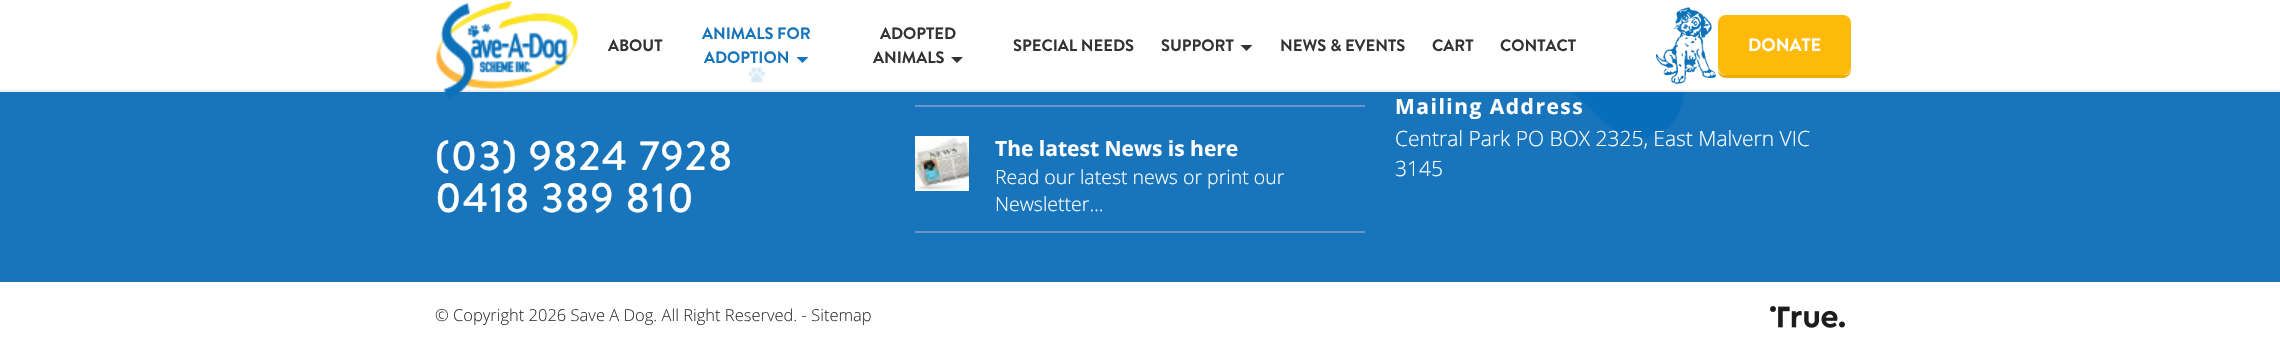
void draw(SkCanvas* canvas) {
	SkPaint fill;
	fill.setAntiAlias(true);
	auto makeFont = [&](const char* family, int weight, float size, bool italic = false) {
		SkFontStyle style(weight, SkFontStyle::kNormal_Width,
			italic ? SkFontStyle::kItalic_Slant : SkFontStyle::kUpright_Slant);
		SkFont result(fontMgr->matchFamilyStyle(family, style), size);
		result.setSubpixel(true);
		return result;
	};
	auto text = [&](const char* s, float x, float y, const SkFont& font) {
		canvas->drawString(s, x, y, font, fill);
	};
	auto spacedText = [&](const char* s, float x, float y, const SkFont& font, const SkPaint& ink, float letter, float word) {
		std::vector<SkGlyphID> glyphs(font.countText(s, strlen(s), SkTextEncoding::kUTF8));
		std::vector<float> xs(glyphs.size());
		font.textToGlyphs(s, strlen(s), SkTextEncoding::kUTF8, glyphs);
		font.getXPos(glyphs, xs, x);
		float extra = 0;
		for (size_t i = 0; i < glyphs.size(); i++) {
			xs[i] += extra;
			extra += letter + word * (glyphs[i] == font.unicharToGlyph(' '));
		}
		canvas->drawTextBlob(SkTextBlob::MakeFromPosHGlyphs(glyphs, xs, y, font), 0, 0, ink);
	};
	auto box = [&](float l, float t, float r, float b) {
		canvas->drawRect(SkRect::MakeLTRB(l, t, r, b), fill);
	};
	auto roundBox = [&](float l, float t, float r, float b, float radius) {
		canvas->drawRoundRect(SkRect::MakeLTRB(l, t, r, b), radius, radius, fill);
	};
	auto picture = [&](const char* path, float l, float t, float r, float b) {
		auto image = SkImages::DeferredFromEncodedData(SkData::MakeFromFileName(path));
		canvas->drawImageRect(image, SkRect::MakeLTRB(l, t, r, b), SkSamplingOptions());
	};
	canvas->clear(0xFFFFFFFF);
	fill.setColor(0xFFEEEEEE);
	box(0, 90, 2280, 92);
	fill.setColor(0xFF1875BC);
	box(0, 92, 2280, 282);
	picture("image0.png", 436, 1, 578, 99);
	picture("image1.png", 748, 67, 765, 83);
	canvas->drawPath(SkPathBuilder().moveTo(796.5f, 57).lineTo(808.5f, 57).lineTo(802.5f, 63).close().detach(), fill);
	fill.setColor(0xFF333333);
	canvas->drawPath(SkPathBuilder().moveTo(951, 57).lineTo(963, 57).lineTo(957, 63).close().detach(), fill);
	canvas->drawPath(SkPathBuilder().moveTo(1240.5f, 45).lineTo(1252.5f, 45).lineTo(1246.5f, 51).close().detach(), fill);
	picture("image2.png", 1656, 7, 1716, 84);
	fill.setColor(0xFFEDAC02);
	canvas->drawPath(SkPathBuilder().moveTo(1718, 70).cubicTo(1718, 75, 1722, 78, 1726, 78).lineTo(1843, 78).cubicTo(1847, 78, 1851, 74, 1851, 70).lineTo(1851, 68).cubicTo(1851, 72, 1848, 75, 1844, 75).lineTo(1725, 75).cubicTo(1722, 75, 1719, 73, 1718, 70).close().detach(), fill);
	fill.setColor(0xFFFDBA0B);
	roundBox(1718, 15, 1851, 75, 8);
	picture("image3.png", 1568, 92, 1685, 139);
	fill.setColor(0xFF6B94C9);
	box(915, 105, 1365, 107);
	box(915, 231, 1365, 233);
	picture("image4.png", 915, 136, 969, 190);
	fill.setColor(0xFFFFFFFF);
	box(915, 190, 969, 191);
	picture("image5.png", 1770, 306, 1845, 328);
	auto font1 = makeFont("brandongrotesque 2", 500, 16.5f);
	fill.setColor(0xFF333333);
	text("ABOUT", 608, 51, font1);
	fill.setColor(0xFF1875BC);
	text("ANIMALS FOR", 702, 39, font1);
	text("ADOPTION", 704, 63, font1);
	fill.setColor(0xFF333333);
	text("ADOPTED", 880, 39, font1);
	text("ANIMALS", 873, 63, font1);
	text("SPECIAL NEEDS", 1013, 51, font1);
	text("SUPPORT", 1161, 51, font1);
	text("NEWS & EVENTS", 1280, 51, font1);
	text("CART", 1432, 51, font1);
	text("CONTACT", 1500, 51, font1);
	auto font2 = makeFont("brandongrotesque 2", 500, 18);
	fill.setColor(0xFFFFFFFF);
	text("DONATE", 1748, 51, font2);
	auto font3 = makeFont("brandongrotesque", 500, 42);
	spacedText("(03) 9824 7928", 435, 170, font3, fill, 1.5f, 0);
	spacedText("0418 389 810", 435, 212, font3, fill, 1.5f, 0);
	auto font4 = makeFont("Open Sans", 700, 21);
	text("The latest News is here", 995, 156, font4);
	auto font5 = makeFont("Open Sans", 300, 19.5f);
	text("Read our latest news or print our", 995, 184, font5);
	text("Newsletter…", 995, 211, font5);
	spacedText("Mailing Address", 1395, 114, font4, fill, 1.5f, 0);
	auto font6 = makeFont("Open Sans", 300, 21);
	text("Central Park PO BOX 2325, East Malvern VIC", 1395, 146, font6);
	text("3145", 1395, 176, font6);
	auto font7 = makeFont("Open Sans", 300, 16.5f);
	fill.setColor(0xFF333333);
	text("© Copyright 2026 Save A Dog. All Right Reserved. - Sitemap", 435, 321, font7);
}
